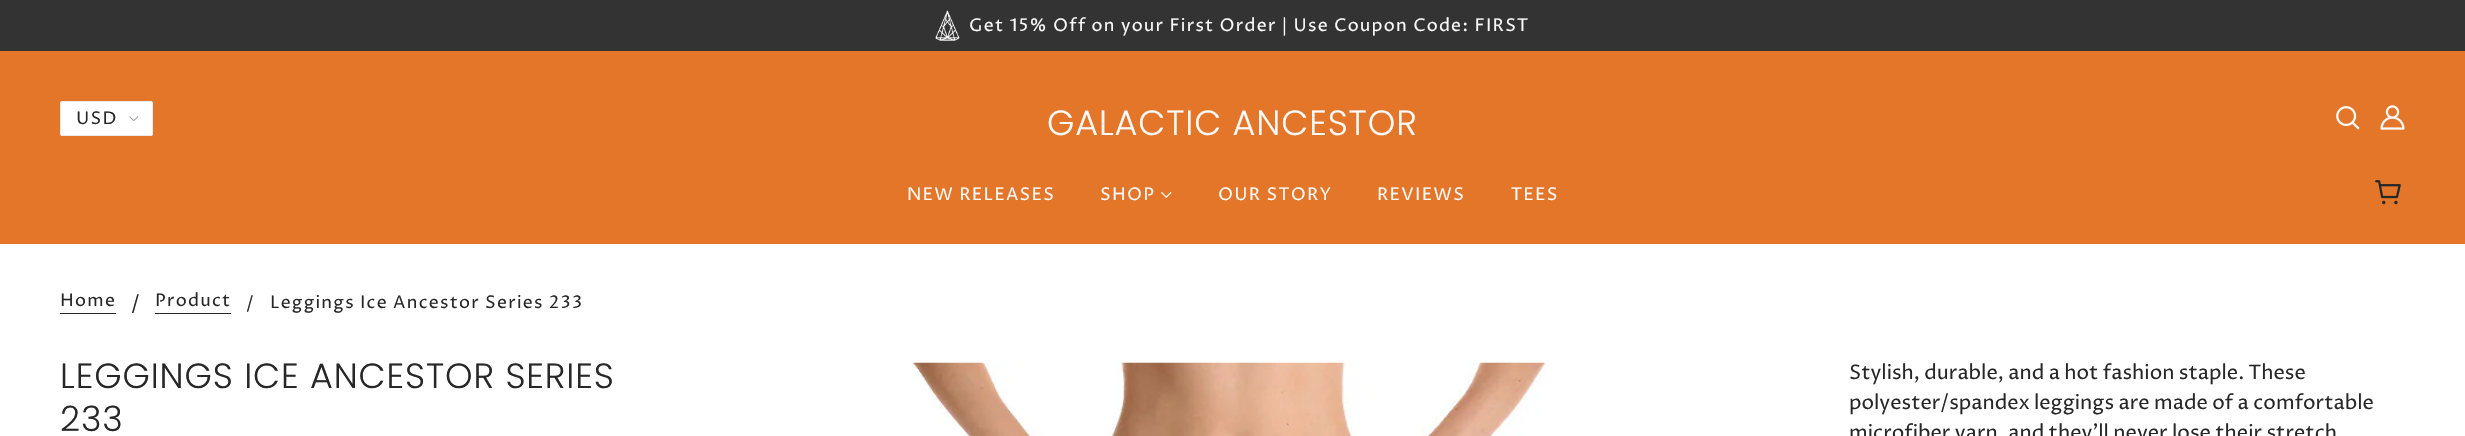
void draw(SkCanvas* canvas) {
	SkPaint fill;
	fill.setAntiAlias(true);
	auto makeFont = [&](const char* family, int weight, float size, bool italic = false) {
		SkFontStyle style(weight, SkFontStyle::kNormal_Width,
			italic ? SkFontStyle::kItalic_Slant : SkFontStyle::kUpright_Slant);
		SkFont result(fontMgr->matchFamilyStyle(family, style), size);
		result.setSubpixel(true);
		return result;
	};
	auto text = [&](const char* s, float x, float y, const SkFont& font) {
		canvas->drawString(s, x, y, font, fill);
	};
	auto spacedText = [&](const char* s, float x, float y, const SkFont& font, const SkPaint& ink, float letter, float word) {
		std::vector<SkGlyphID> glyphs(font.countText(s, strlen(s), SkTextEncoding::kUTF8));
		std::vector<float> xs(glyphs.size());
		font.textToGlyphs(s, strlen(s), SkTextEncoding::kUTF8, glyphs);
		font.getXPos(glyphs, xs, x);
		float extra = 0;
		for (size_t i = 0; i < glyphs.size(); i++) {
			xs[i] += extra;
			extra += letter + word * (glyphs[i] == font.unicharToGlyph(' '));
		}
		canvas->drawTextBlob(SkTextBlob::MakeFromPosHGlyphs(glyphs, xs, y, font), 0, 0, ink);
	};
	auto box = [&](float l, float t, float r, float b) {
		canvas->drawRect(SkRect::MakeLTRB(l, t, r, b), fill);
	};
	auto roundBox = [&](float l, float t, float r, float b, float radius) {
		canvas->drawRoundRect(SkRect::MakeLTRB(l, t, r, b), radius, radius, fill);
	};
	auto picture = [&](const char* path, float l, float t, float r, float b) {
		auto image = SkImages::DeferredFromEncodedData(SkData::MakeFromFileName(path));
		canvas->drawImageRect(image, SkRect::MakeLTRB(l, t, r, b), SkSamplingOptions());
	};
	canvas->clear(0xFFFFFFFF);
	fill.setColor(0xFF333333);
	box(0, 0, 2465, 51);
	picture("image0.png", 935, 10, 960, 41);
	fill.setColor(0xFFE37629);
	box(0, 51, 2465, 244);
	fill.setColor(0xFFFFFFFF);
	roundBox(60, 101, 153, 136, 2.5f);
	picture("image1.png", 129, 116, 139, 121);
	fill.setStyle(SkPaint::kStroke_Style);
	fill.setStrokeWidth(1);
	fill.setColor(0xFFEBEBEB);
	canvas->drawRoundRect(SkRect::MakeLTRB(60.5f, 101.5f, 152.5f, 135.5f), 2, 2, fill);
	picture("image2.png", 2336, 106, 2360, 130);
	picture("image3.png", 2380, 105, 2405, 130);
	picture("image4.png", 1161, 192, 1172, 198);
	picture("image5.png", 2375, 180, 2401, 205);
	fill.setStyle(SkPaint::kFill_Style);
	fill.setColor(0xFF272727);
	box(60, 313, 116, 314);
	box(155, 313, 231, 314);
	picture("image6.png", 911, 362, 1547, 436);
	auto font1 = makeFont("Proza Libre", 400, 17.5f);
	fill.setColor(0xFFFAFAFA);
	spacedText("Get 15% Off on your First Order | Use Coupon Code: FIRST", 969, 31, font1, fill, 1.25f, 0);
	fill.setColor(0xFF272727);
	spacedText("USD", 76, 124, font1, fill, 1.25f, 0);
	auto font2 = makeFont("Poppins", 300, 35);
	fill.setColor(0xFFFAFAFA);
	spacedText("GALACTIC ANCESTOR", 1047, 135, font2, fill, 0.9f, 0);
	spacedText("NEW RELEASES", 907, 200, font1, fill, 1.25f, 0);
	spacedText("SHOP", 1100, 200, font1, fill, 1.25f, 0);
	spacedText("OUR STORY", 1218, 200, font1, fill, 1.25f, 0);
	spacedText("REVIEWS", 1377, 200, font1, fill, 1.25f, 0);
	spacedText("TEES", 1511, 200, font1, fill, 1.25f, 0);
	fill.setColor(0xFF272727);
	spacedText("Home", 60, 306, font1, fill, 1.25f, 0);
	auto font3 = makeFont("Proza Libre", 400, 20);
	text("/", 131, 310, font3);
	spacedText("Product", 155, 306, font1, fill, 1.25f, 0);
	spacedText("/", 246, 309, font1, fill, 1.25f, 0);
	spacedText("Leggings Ice Ancestor Series 233", 270, 308, font1, fill, 1.25f, 0);
	spacedText("LEGGINGS ICE ANCESTOR SERIES", 60, 388, font2, fill, 0.9f, 0);
	spacedText("233", 60, 431, font2, fill, 0.9f, 0);
	text("Stylish, durable, and a hot fashion staple. These", 1849, 379, font3);
	text("polyester/spandex leggings are made of a comfortable", 1849, 409, font3);
	text("microfiber yarn, and they'll never lose their stretch", 1849, 439, font3);
}
